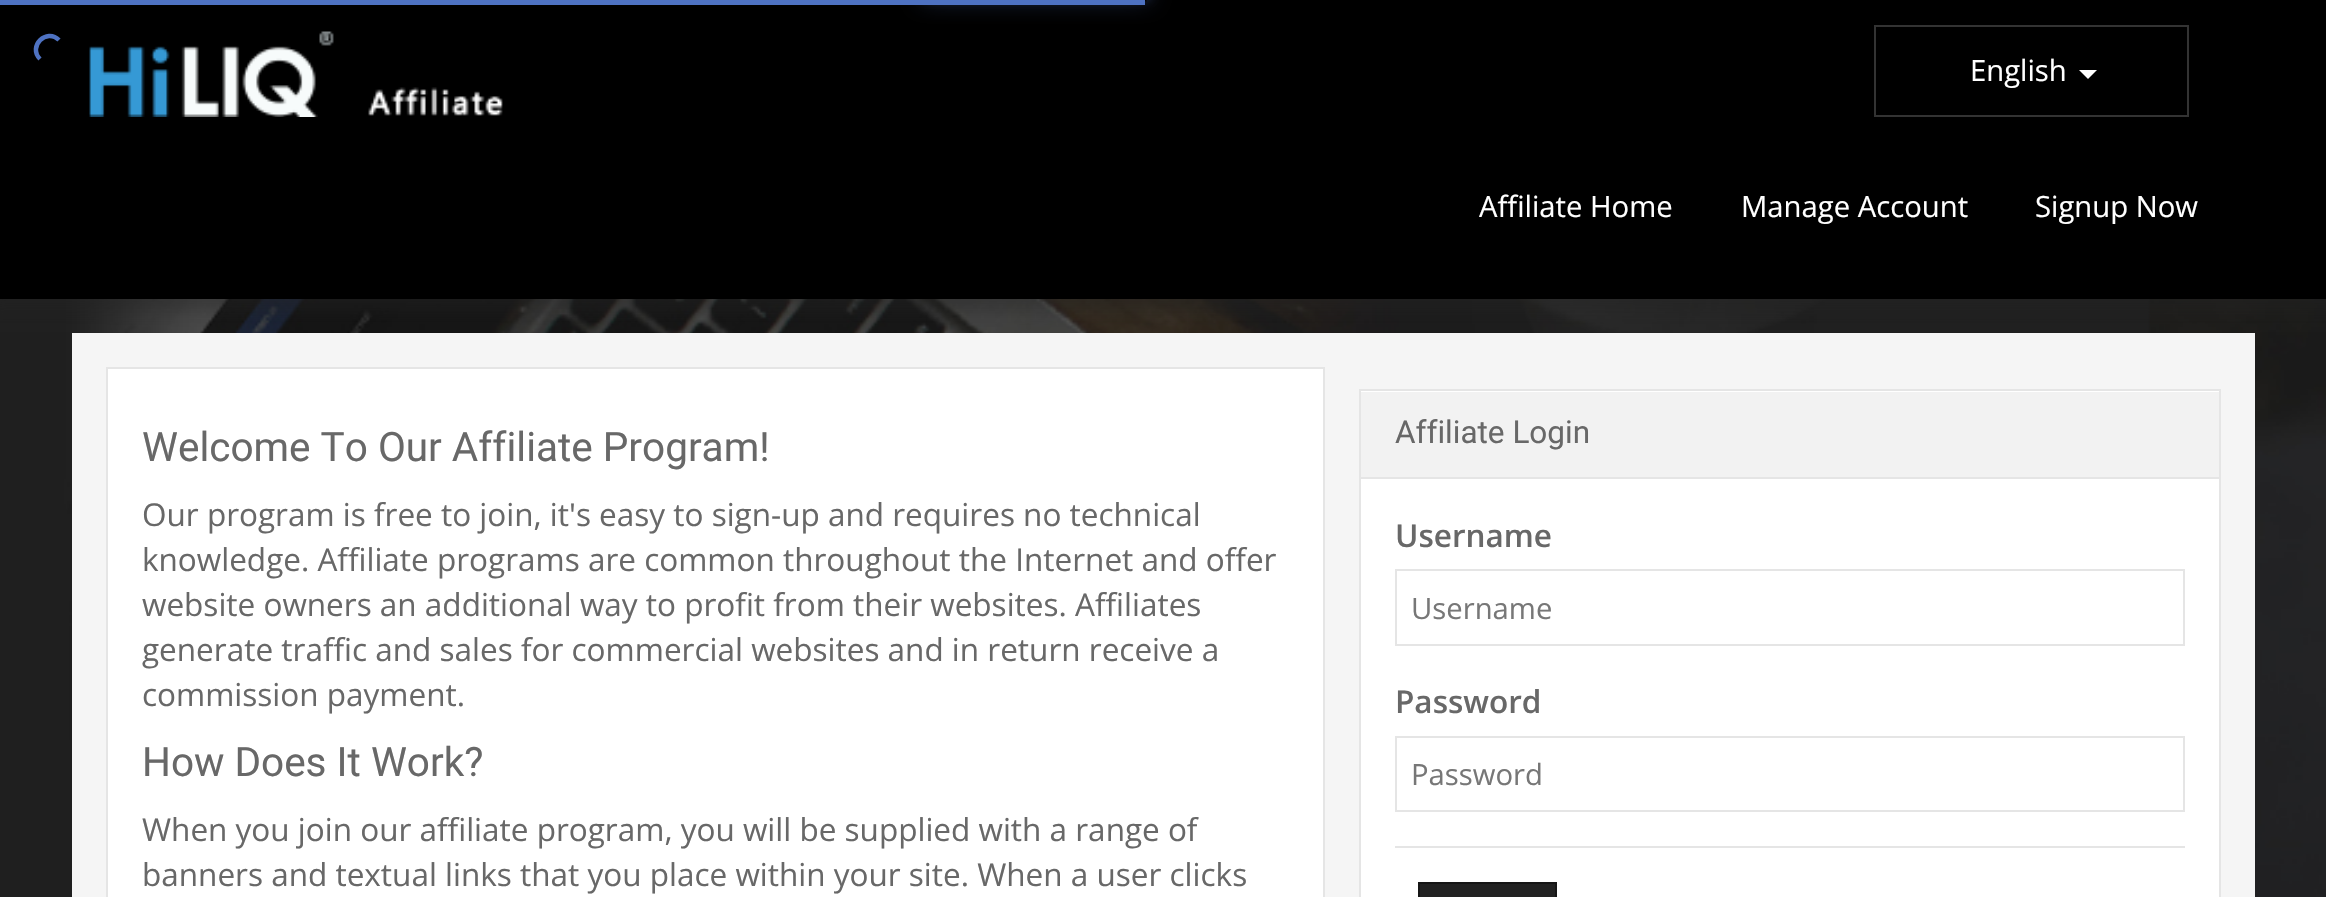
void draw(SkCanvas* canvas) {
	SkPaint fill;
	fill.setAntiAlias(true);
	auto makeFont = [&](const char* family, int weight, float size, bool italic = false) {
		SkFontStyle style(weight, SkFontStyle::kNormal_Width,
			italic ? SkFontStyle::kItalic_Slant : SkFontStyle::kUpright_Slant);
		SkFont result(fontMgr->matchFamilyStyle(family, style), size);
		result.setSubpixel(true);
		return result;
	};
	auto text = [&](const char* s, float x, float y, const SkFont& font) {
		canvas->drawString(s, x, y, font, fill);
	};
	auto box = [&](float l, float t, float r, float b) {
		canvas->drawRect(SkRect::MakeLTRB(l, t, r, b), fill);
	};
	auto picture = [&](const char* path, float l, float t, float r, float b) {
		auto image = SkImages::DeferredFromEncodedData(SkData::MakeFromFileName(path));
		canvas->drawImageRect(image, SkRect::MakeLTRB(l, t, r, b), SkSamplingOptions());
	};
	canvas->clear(0xFFFFFFFF);
	picture("image0.png", 0, 299, 2326, 897);
	fill.setColor(0x66222222);
	fill.setMaskFilter(SkMaskFilter::MakeBlur(kNormal_SkBlurStyle, 7));
	canvas->drawRect(SkRect::MakeLTRB(-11, -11, 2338, 311), fill);
	fill.setMaskFilter(nullptr);
	fill.setColor(0xFF000000);
	box(0, 0, 2326, 299);
	fill.setColor(0xFF4E72C2);
	box(0, 0, 1145, 5);
	canvas->save();
	canvas->clipPath(SkPathBuilder(SkPathFillType::kEvenOdd).moveTo(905, 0).lineTo(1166, 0).lineTo(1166, 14).lineTo(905, 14).close().moveTo(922, -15).lineTo(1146.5f, -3).lineTo(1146.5f, 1.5f).lineTo(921.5f, -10.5f).close().detach(), true);
	fill.setMaskFilter(SkMaskFilter::MakeBlur(kNormal_SkBlurStyle, 5.5f));
	canvas->drawRect(SkRect::MakeLTRB(923, -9, 1148, -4), fill);
	fill.setMaskFilter(nullptr);
	canvas->restore();
	canvas->save();
	canvas->clipPath(SkPathBuilder(SkPathFillType::kEvenOdd).moveTo(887, 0).lineTo(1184, 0).lineTo(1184, 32).lineTo(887, 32).close().moveTo(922, -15).lineTo(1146.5f, -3).lineTo(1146.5f, 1.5f).lineTo(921.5f, -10.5f).close().detach(), true);
	fill.setMaskFilter(SkMaskFilter::MakeBlur(kNormal_SkBlurStyle, 11.5f));
	canvas->drawRect(SkRect::MakeLTRB(923, -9, 1148, -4), fill);
	fill.setMaskFilter(nullptr);
	canvas->restore();
	fill.setStyle(SkPaint::kStroke_Style);
	fill.setStrokeWidth(4.5f);
	canvas->drawPath(SkPathBuilder().moveTo(40, 59).cubicTo(27.5f, 46.5f, 46.5f, 27.5f, 59, 40).detach(), fill);
	picture("image1.png", 89, 31, 503, 117);
	fill.setStrokeWidth(2);
	fill.setColor(0xFF333333);
	canvas->drawRect(SkRect::MakeLTRB(1875, 26, 2188, 116), fill);
	fill.setStyle(SkPaint::kFill_Style);
	fill.setColor(0xFFFFFFFF);
	canvas->drawPath(SkPathBuilder().moveTo(2079, 70).lineTo(2097, 70).lineTo(2088, 79).close().detach(), fill);
	fill.setColor(0xFFF5F5F5);
	box(72, 333, 2255, 897);
	fill.setColor(0xFFFFFFFF);
	canvas->drawRect(SkRect::MakeLTRB(107, 368, 1324, 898), fill);
	fill.setStyle(SkPaint::kStroke_Style);
	fill.setColor(0xFFE5E5E5);
	canvas->drawRect(SkRect::MakeLTRB(107, 368, 1324, 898), fill);
	fill.setStyle(SkPaint::kFill_Style);
	fill.setColor(0xFFFFFFFF);
	canvas->drawRect(SkRect::MakeLTRB(1360, 390, 2220, 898), fill);
	fill.setStyle(SkPaint::kStroke_Style);
	fill.setColor(0xFFE5E5E5);
	canvas->drawRect(SkRect::MakeLTRB(1360, 390, 2220, 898), fill);
	fill.setStyle(SkPaint::kFill_Style);
	fill.setColor(0xFFF2F2F2);
	box(1361, 392, 2219, 477);
	fill.setColor(0xFFE5E5E5);
	box(1361, 477, 2219, 479);
	fill.setStyle(SkPaint::kStroke_Style);
	canvas->drawRect(SkRect::MakeLTRB(1396, 570, 2184, 645), fill);
	canvas->drawRect(SkRect::MakeLTRB(1396, 737, 2184, 811), fill);
	fill.setStyle(SkPaint::kFill_Style);
	box(1395, 846, 2185, 848);
	fill.setColor(0xFF222222);
	canvas->drawRect(SkRect::MakeLTRB(1419, 883, 1556, 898), fill);
	fill.setStyle(SkPaint::kStroke_Style);
	fill.setColor(0xFF161616);
	canvas->drawRect(SkRect::MakeLTRB(1419, 883, 1556, 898), fill);
	auto font1 = makeFont("Open Sans", 400, 29.25f);
	fill.setStyle(SkPaint::kFill_Style);
	fill.setColor(0xFFFFFFFF);
	text("English", 1970, 81, font1);
	text("Affiliate Home", 1479, 217, font1);
	text("Manage Account", 1741, 217, font1);
	text("Signup Now", 2035, 217, font1);
	auto font2 = makeFont("Roboto", 400, 40.5f);
	fill.setColor(0xFF686868);
	text("Welcome To Our Affiliate Program!", 142, 461, font2);
	auto font3 = makeFont("Open Sans", 400, 31.5f);
	text("Our program is free to join, it's easy to sign-up and requires no technical", 142, 526, font3);
	text("knowledge. Affiliate programs are common throughout the Internet and offer", 142, 571, font3);
	text("website owners an additional way to profit from their websites. Affiliates", 142, 616, font3);
	text("generate traffic and sales for commercial websites and in return receive a", 142, 661, font3);
	text("commission payment.", 142, 706, font3);
	text("How Does It Work?", 142, 776, font2);
	text("When you join our affiliate program, you will be supplied with a range of", 142, 841, font3);
	text("banners and textual links that you place within your site. When a user clicks", 142, 886, font3);
	auto font4 = makeFont("Roboto", 400, 31.5f);
	text("Affiliate Login", 1395, 443, font4);
	auto font5 = makeFont("Open Sans", 600, 31.5f);
	text("Username", 1395, 547, font5);
	fill.setColor(0xFF777777);
	text("Username", 1411, 619, font1);
	fill.setColor(0xFF686868);
	text("Password", 1395, 713, font5);
	fill.setColor(0xFF777777);
	text("Password", 1411, 785, font1);
}
